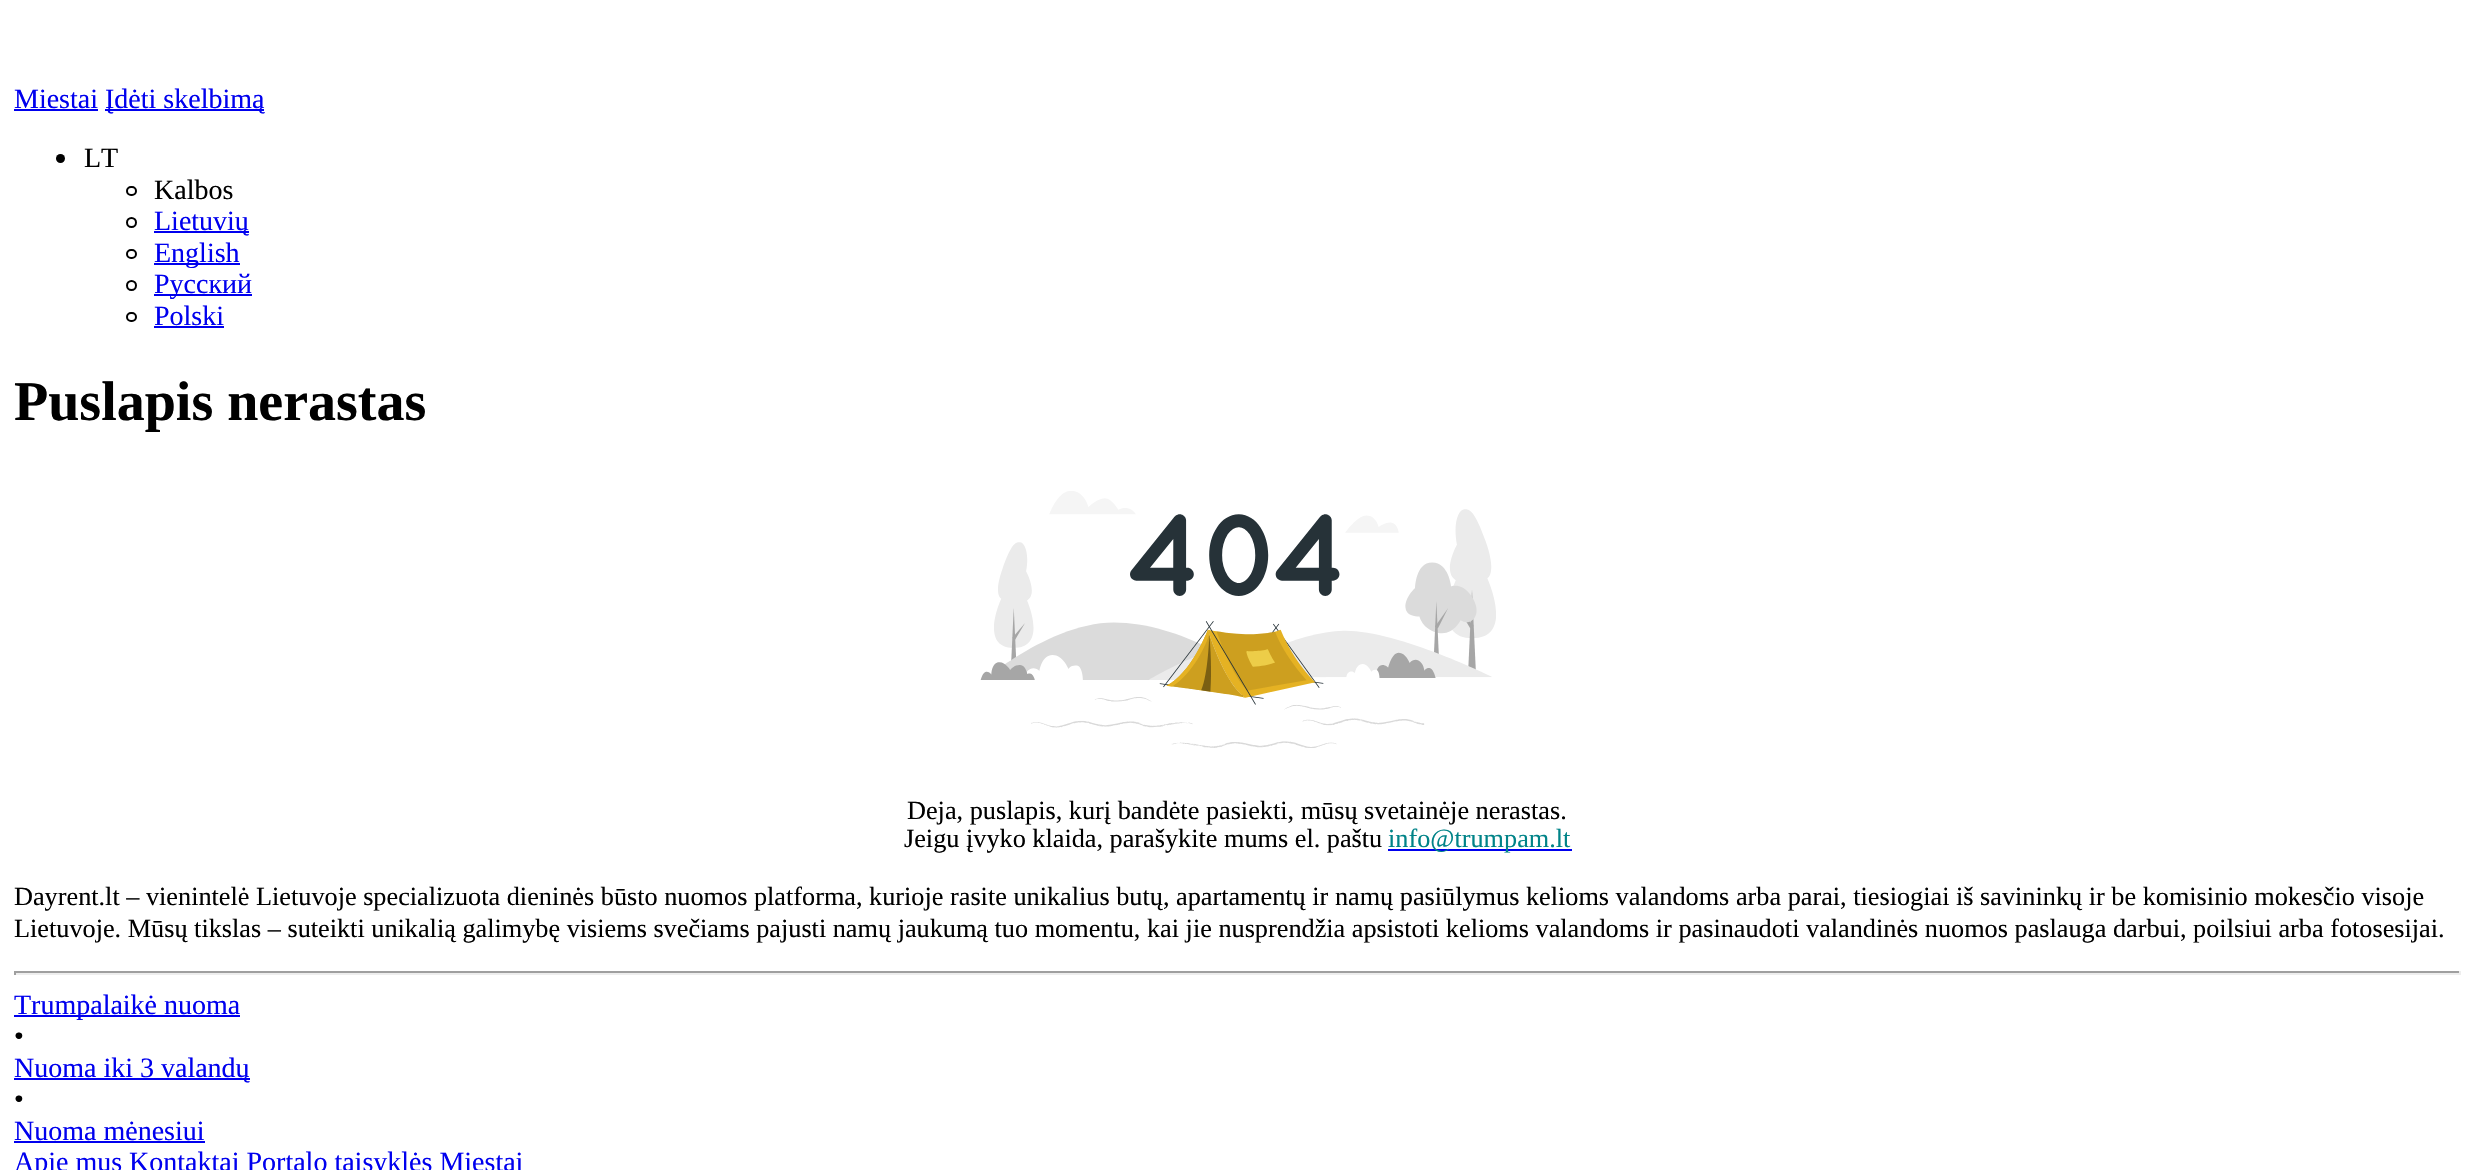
void draw(SkCanvas* canvas) {
	SkPaint fill;
	fill.setAntiAlias(true);
	auto makeFont = [&](const char* family, int weight, float size, bool italic = false) {
		SkFontStyle style(weight, SkFontStyle::kNormal_Width,
			italic ? SkFontStyle::kItalic_Slant : SkFontStyle::kUpright_Slant);
		SkFont result(fontMgr->matchFamilyStyle(family, style), size);
		result.setSubpixel(true);
		return result;
	};
	auto text = [&](const char* s, float x, float y, const SkFont& font) {
		canvas->drawString(s, x, y, font, fill);
	};
	auto box = [&](float l, float t, float r, float b) {
		canvas->drawRect(SkRect::MakeLTRB(l, t, r, b), fill);
	};
	auto picture = [&](const char* path, float l, float t, float r, float b) {
		auto image = SkImages::DeferredFromEncodedData(SkData::MakeFromFileName(path));
		canvas->drawImageRect(image, SkRect::MakeLTRB(l, t, r, b), SkSamplingOptions());
	};
	canvas->clear(0xFFFFFFFF);
	fill.setColor(0xFF0000EE);
	box(14, 109, 98, 111);
	box(105, 109, 264, 111);
	fill.setColor(0xFF000000);
	canvas->drawCircle(60.5f, 158.5f, 4.5f, fill);
	fill.setStyle(SkPaint::kStroke_Style);
	fill.setStrokeWidth(2);
	canvas->drawRoundRect(SkRect::MakeLTRB(127, 187, 136, 195), 4, 4, fill);
	canvas->drawCircle(131.5f, 222.5f, 4.5f, fill);
	fill.setStyle(SkPaint::kFill_Style);
	fill.setColor(0xFF0000EE);
	box(154, 231, 249, 233);
	fill.setStyle(SkPaint::kStroke_Style);
	fill.setColor(0xFF000000);
	canvas->drawRoundRect(SkRect::MakeLTRB(127, 250, 136, 258), 4, 4, fill);
	fill.setStyle(SkPaint::kFill_Style);
	fill.setColor(0xFF0000EE);
	box(154, 263, 240, 265);
	fill.setStyle(SkPaint::kStroke_Style);
	fill.setColor(0xFF000000);
	canvas->drawCircle(131.5f, 285.5f, 4.5f, fill);
	fill.setStyle(SkPaint::kFill_Style);
	fill.setColor(0xFF0000EE);
	box(154, 294, 252, 296);
	fill.setStyle(SkPaint::kStroke_Style);
	fill.setColor(0xFF000000);
	canvas->drawRoundRect(SkRect::MakeLTRB(127, 313, 136, 321), 4, 4, fill);
	fill.setStyle(SkPaint::kFill_Style);
	fill.setColor(0xFF0000EE);
	box(154, 326, 224, 328);
	picture("image0.png", 980, 491, 1496, 748);
	box(1388, 849, 1572, 851);
	fill.setColor(0xFF9F9F9F);
	box(14, 971, 2461, 973);
	fill.setColor(0xFFEEEEEE);
	box(2459, 971, 2461, 975);
	box(14, 973, 2461, 975);
	fill.setColor(0xFF9F9F9F);
	box(14, 971, 16, 975);
	fill.setColor(0xFF0000EE);
	box(14, 1015, 240, 1017);
	box(14, 1078, 250, 1080);
	box(14, 1141, 205, 1143);
	auto font1 = makeFont("Liberation Serif", 400, 28);
	text("Miestai", 14, 108, font1);
	text("Įdėti skelbimą", 105, 108, font1);
	fill.setColor(0xFF000000);
	text("LT", 84, 167, font1);
	text("Kalbos", 154, 199, font1);
	fill.setColor(0xFF0000EE);
	text("Lietuvių", 154, 230, font1);
	text("English", 154, 262, font1);
	text("Русский", 154, 293, font1);
	text("Polski", 154, 325, font1);
	auto font2 = makeFont("Liberation Serif", 700, 56);
	fill.setColor(0xFF000000);
	text("Puslapis nerastas", 14, 420, font2);
	auto font3 = makeFont("Liberation Serif", 400, 26.25f);
	text("Deja, puslapis, kurį bandėte pasiekti, mūsų svetainėje nerastas.", 907, 819, font3);
	text("Jeigu įvyko klaida, parašykite mums el. paštu", 904, 847, font3);
	fill.setColor(0xFF008388);
	text("info@trumpam.lt", 1388, 847, font3);
	fill.setColor(0xFF000000);
	text("Dayrent.lt – vienintelė Lietuvoje specializuota dieninės būsto nuomos platforma, kurioje rasite unikalius butų, apartamentų ir namų pasiūlymus kelioms valandoms arba parai, tiesiogiai iš savininkų ir be komisinio mokesčio visoje", 14, 905, font3);
	text("Lietuvoje. Mūsų tikslas – suteikti unikalią galimybę visiems svečiams pajusti namų jaukumą tuo momentu, kai jie nusprendžia apsistoti kelioms valandoms ir pasinaudoti valandinės nuomos paslauga darbui, poilsiui arba fotosesijai.", 14, 937, font3);
	fill.setColor(0xFF0000EE);
	text("Trumpalaikė nuoma", 14, 1014, font1);
	fill.setColor(0xFF000000);
	text("•", 14, 1045, font1);
	fill.setColor(0xFF0000EE);
	text("Nuoma iki 3 valandų", 14, 1077, font1);
	fill.setColor(0xFF000000);
	text("•", 14, 1108, font1);
	fill.setColor(0xFF0000EE);
	text("Nuoma mėnesiui", 14, 1140, font1);
	text("Apie mus Kontaktai Portalo taisyklės Miestai", 14, 1171, font1);
}
